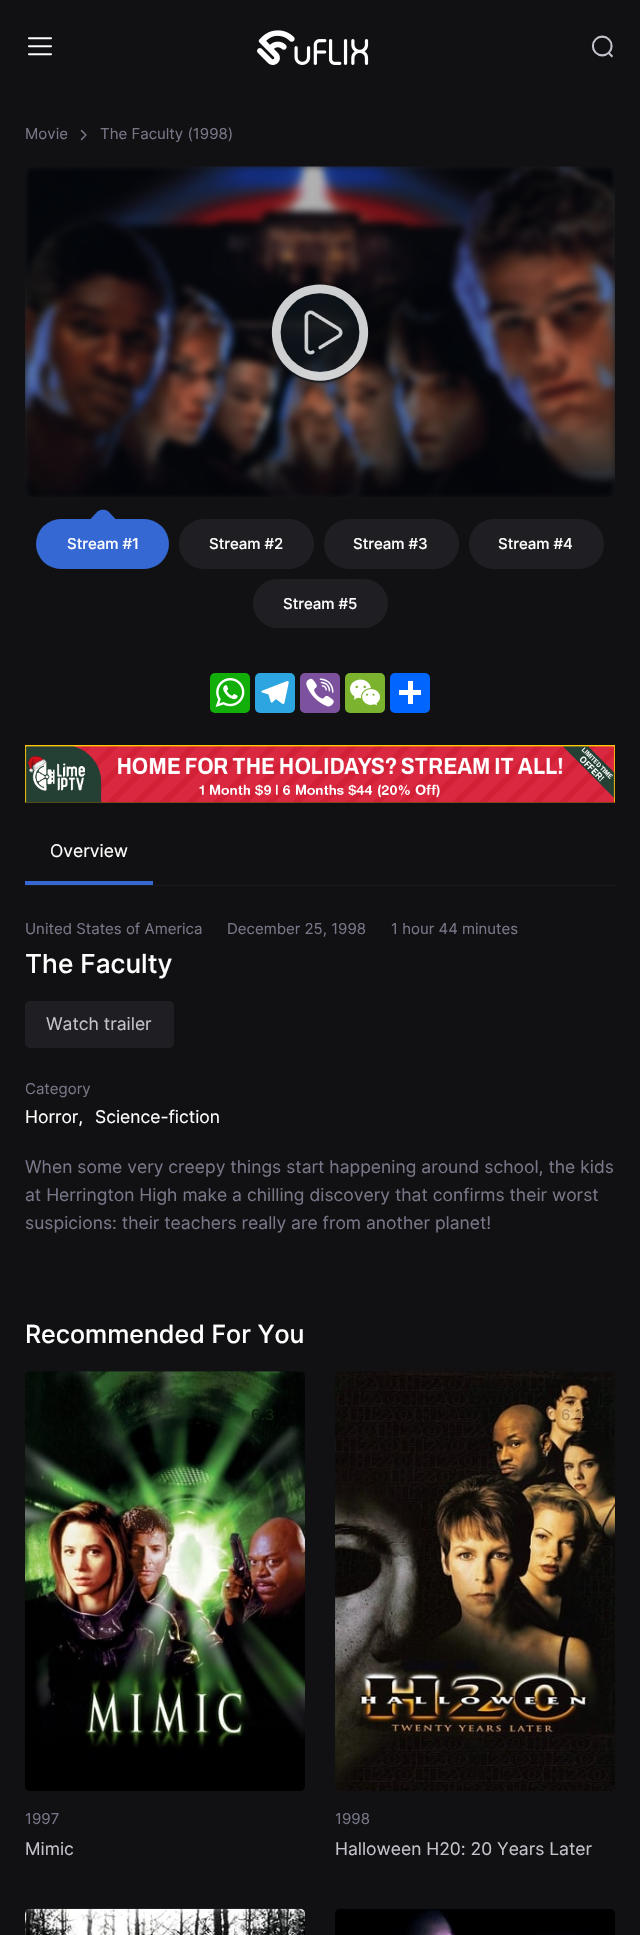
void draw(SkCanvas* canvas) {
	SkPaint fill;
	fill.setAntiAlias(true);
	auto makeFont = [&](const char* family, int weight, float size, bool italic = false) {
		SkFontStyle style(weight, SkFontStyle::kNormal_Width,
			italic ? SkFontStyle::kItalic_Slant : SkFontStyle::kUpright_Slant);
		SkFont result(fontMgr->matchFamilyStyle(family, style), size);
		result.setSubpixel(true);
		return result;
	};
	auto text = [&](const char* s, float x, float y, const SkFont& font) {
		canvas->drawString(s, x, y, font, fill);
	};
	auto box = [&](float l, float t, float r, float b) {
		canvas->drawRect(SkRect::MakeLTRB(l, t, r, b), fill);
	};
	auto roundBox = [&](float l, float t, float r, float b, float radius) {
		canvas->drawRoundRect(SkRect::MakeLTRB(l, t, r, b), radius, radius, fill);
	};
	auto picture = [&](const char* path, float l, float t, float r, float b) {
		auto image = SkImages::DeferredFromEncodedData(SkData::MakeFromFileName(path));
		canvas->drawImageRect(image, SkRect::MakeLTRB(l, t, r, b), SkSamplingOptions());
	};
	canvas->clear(0xFF111113);
	picture("image0.png", 28, 37, 52, 56);
	picture("image1.png", 257, 30, 369, 65);
	picture("image2.png", 591, 35, 613, 58);
	picture("image3.png", 80, 129, 87, 141);
	picture("image4.png", 25, 166, 615, 498);
	fill.setColor(0xFF3568D3);
	canvas->drawPath(SkPathBuilder().moveTo(108.5f, 511.5f).lineTo(115.5f, 519).cubicTo(118.5f, 521.5f, 118.5f, 526.5f, 115.5f, 529.5f).lineTo(108.5f, 536.5f).cubicTo(105.5f, 539.5f, 100.5f, 539.5f, 97.5f, 536.5f).lineTo(90.5f, 529.5f).cubicTo(87.5f, 526.5f, 87.5f, 521.5f, 90.5f, 519).lineTo(97.5f, 511.5f).cubicTo(100.5f, 509, 105.5f, 509, 108.5f, 511.5f).close().detach(), fill);
	roundBox(36, 519, 169, 569, 25);
	fill.setColor(0xFF1F1F23);
	roundBox(179, 519, 314, 569, 25);
	roundBox(324, 519, 459, 569, 25);
	roundBox(469, 519, 604, 569, 25);
	roundBox(253, 579, 388, 628, 24.5f);
	fill.setColor(0xFF12AF0A);
	roundBox(210, 673, 250, 713, 5);
	picture("image5.png", 215, 678, 245, 707);
	fill.setColor(0xFF2CA5E0);
	roundBox(255, 673, 295, 713, 5);
	picture("image6.png", 261, 681, 289, 704);
	fill.setColor(0xFF7C529E);
	roundBox(300, 673, 340, 713, 5);
	picture("image7.png", 306, 678, 334, 707);
	fill.setColor(0xFF7BB32E);
	roundBox(345, 673, 385, 713, 5);
	picture("image8.png", 350, 679, 380, 706);
	fill.setColor(0xFF0166FF);
	roundBox(390, 673, 430, 713, 5);
	fill.setColor(0xFFFFFFFF);
	box(408, 681, 413, 704);
	box(399, 690, 421, 695);
	picture("image9.png", 25, 745, 615, 803);
	fill.setColor(0xFF1A1A1E);
	box(25, 885, 615, 886);
	fill.setColor(0xFF3568D3);
	box(25, 881, 153, 885);
	fill.setColor(0xFF1F1F23);
	roundBox(25, 1001, 174, 1048, 5);
	picture("image10.png", 25, 1371, 305, 1791);
	picture("image11.png", 335, 1371, 615, 1791);
	picture("image12.png", 25, 1908, 305, 1935);
	picture("image13.png", 335, 1909, 615, 1935);
	auto font1 = makeFont("Inter", 400, 15);
	fill.setColor(0xFF777788);
	text("Movie", 25, 139, font1);
	text("The Faculty (1998)", 100, 139, font1);
	auto font2 = makeFont("Inter", 500, 15);
	fill.setColor(0xFFFFFFFF);
	text("Stream #1", 67, 549, font2);
	text("Stream #2", 209, 549, font2);
	text("Stream #3", 353, 549, font2);
	text("Stream #4", 498, 549, font2);
	text("Stream #5", 283, 609, font2);
	auto font3 = makeFont("Inter", 400, 17.5f);
	text("Overview", 50, 857, font3);
	fill.setColor(0xFF777788);
	text("United States of America", 25, 934, font1);
	text("December 25, 1998", 227, 934, font1);
	text("1 hour 44 minutes", 391, 934, font1);
	auto font4 = makeFont("Inter", 500, 26.25f);
	fill.setColor(0xFFFFFFFF);
	text("The Faculty", 25, 973, font4);
	fill.setColor(0xFFC3C3CB);
	text("Watch trailer", 46, 1030, font3);
	fill.setColor(0xFF777788);
	text("Category", 25, 1094, font1);
	fill.setColor(0xFFFFFFFF);
	text("Horror,", 25, 1123, font3);
	text("Science-fiction", 95, 1123, font3);
	fill.setColor(0xFF777788);
	text("When some very creepy things start happening around school, the kids", 25, 1173, font3);
	text("at Herrington High make a chilling discovery that confirms their worst", 25, 1201, font3);
	text("suspicions: their teachers really are from another planet!", 25, 1229, font3);
	auto font5 = makeFont("Inter", 500, 25);
	fill.setColor(0xFFFFFFFF);
	text("Recommended For You", 25, 1343, font5);
	fill.setColor(0xFF102210);
	text("6.3", 251, 1420, font2);
	fill.setColor(0xFF777788);
	text("1997", 25, 1824, font1);
	fill.setColor(0xFFC3C3CB);
	text("Mimic", 25, 1855, font3);
	fill.setColor(0xFFB68F5B);
	text("6.4", 561, 1420, font2);
	fill.setColor(0xFF777788);
	text("1998", 335, 1824, font1);
	fill.setColor(0xFFC3C3CB);
	text("Halloween H20: 20 Years Later", 335, 1855, font3);
}
